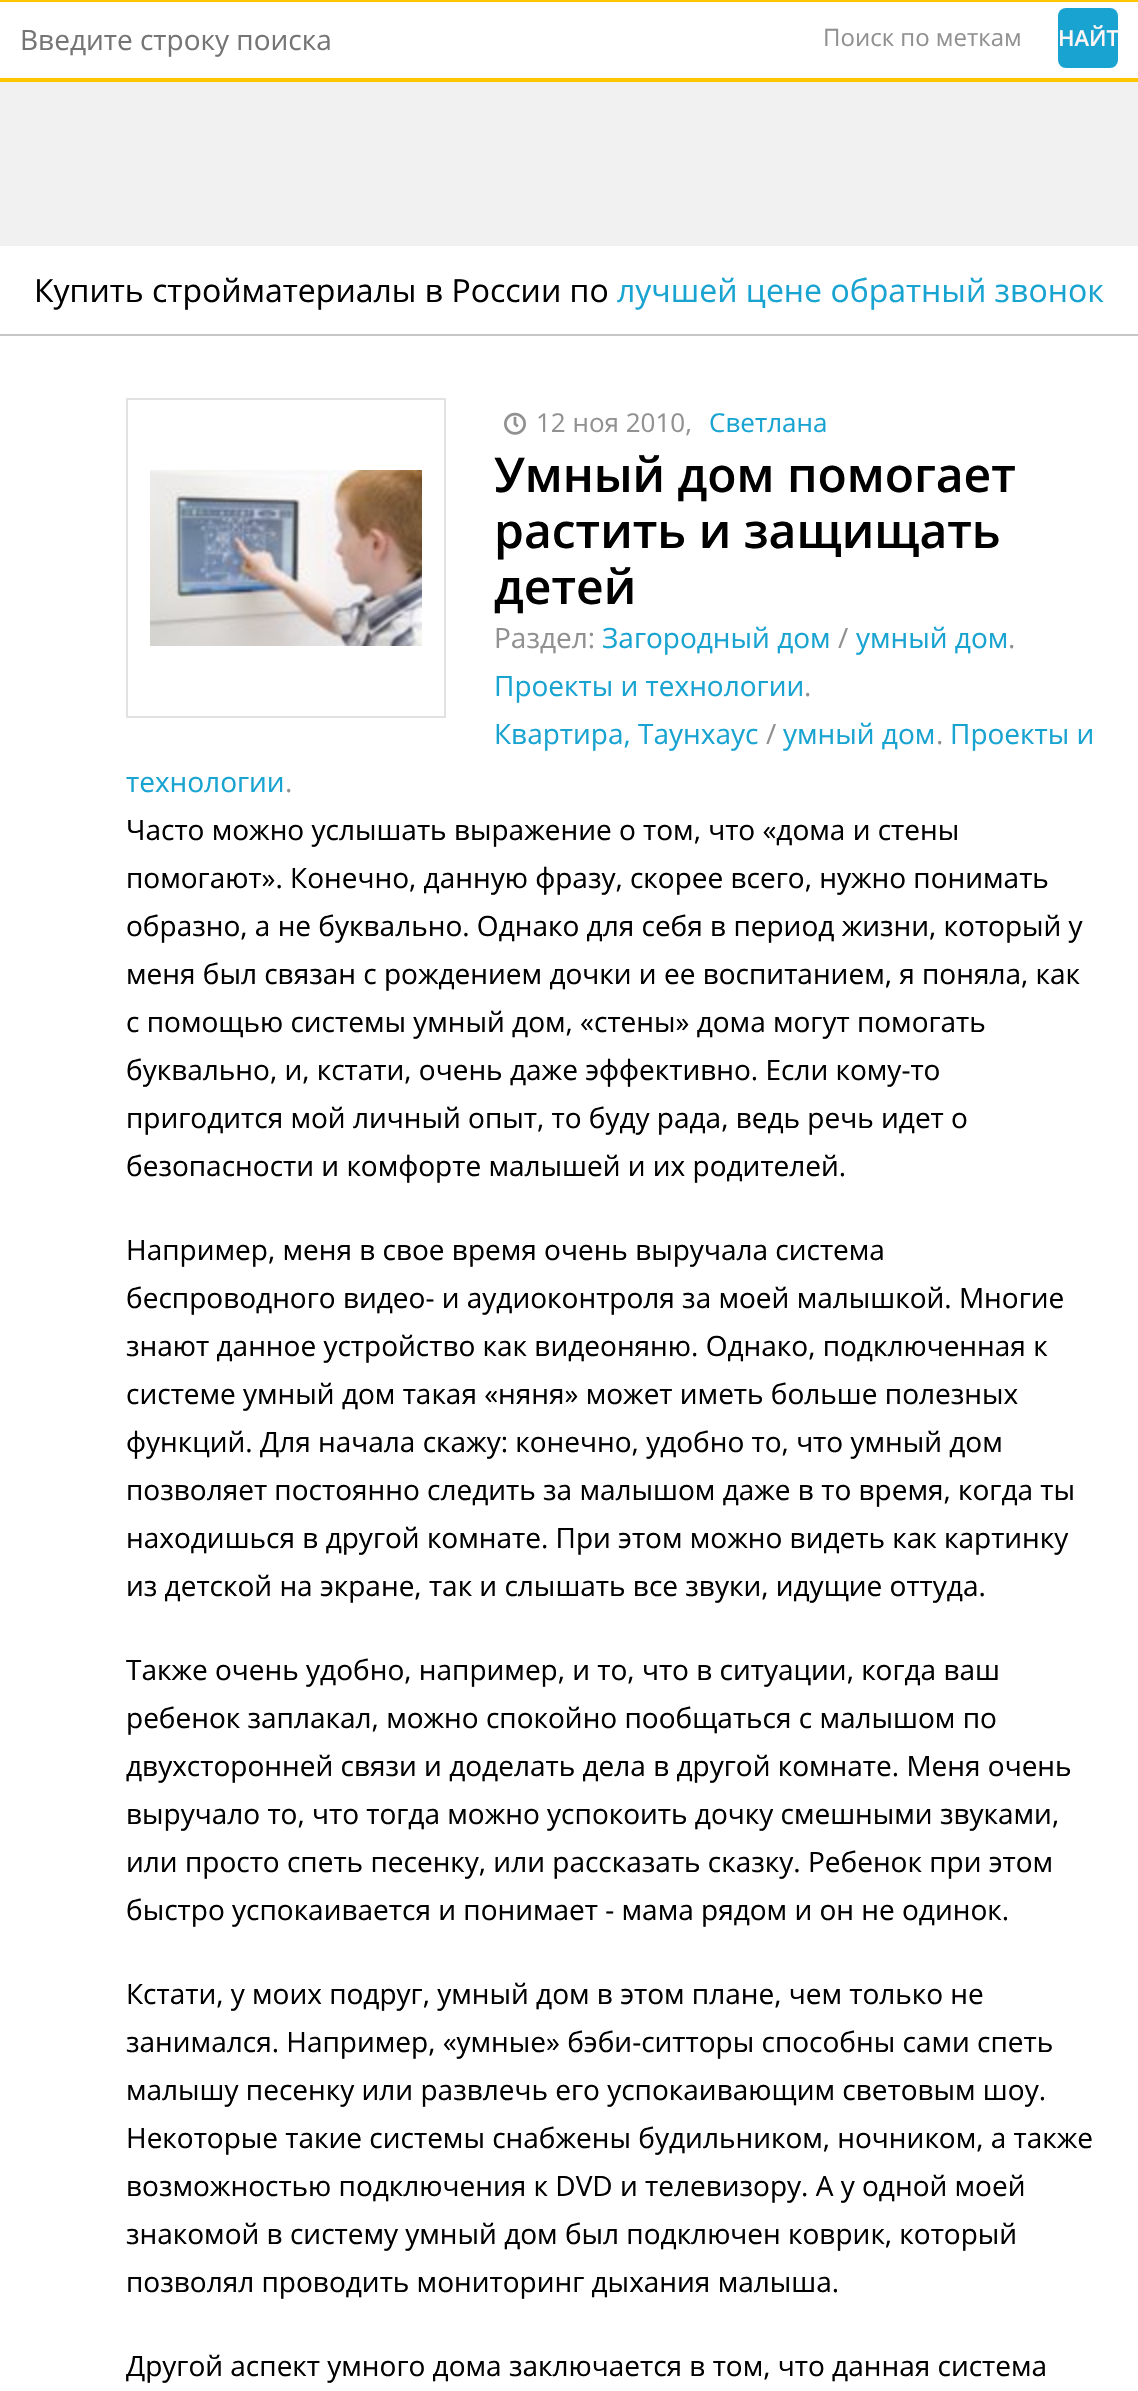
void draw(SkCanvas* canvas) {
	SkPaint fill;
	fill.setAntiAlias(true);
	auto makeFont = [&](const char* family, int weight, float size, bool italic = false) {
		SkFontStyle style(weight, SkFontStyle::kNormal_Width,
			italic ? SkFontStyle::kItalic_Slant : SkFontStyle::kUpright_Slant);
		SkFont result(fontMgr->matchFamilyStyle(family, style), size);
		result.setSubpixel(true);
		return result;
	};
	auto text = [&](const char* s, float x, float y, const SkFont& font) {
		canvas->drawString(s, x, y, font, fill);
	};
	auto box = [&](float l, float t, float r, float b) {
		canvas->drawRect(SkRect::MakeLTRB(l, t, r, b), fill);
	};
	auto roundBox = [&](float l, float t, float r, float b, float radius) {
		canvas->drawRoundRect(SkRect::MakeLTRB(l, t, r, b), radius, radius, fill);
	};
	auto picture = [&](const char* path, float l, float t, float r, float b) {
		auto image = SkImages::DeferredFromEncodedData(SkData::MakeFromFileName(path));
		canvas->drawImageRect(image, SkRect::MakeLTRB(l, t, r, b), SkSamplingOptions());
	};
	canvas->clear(0xFFF1F1F1);
	fill.setColor(0xFFFFFFFF);
	box(0, 2, 1138, 78);
	fill.setColor(0xFFFFC600);
	box(0, 0, 1138, 2);
	box(0, 78, 1138, 82);
	fill.setColor(0xFF18A3D1);
	roundBox(1058, 8, 1118, 68, 8);
	fill.setColor(0xFFFFFFFF);
	box(0, 246, 1138, 334);
	fill.setColor(0xFFC6C6C6);
	box(0, 334, 1138, 336);
	fill.setColor(0xFFFFFFFF);
	box(0, 336, 1138, 2391);
	fill.setStyle(SkPaint::kStroke_Style);
	fill.setStrokeWidth(2);
	fill.setColor(0xFFE2E2E2);
	canvas->drawRect(SkRect::MakeLTRB(127, 399, 445, 717), fill);
	picture("image0.png", 150, 470, 422, 646);
	picture("image1.png", 504, 412, 526, 435);
	auto font1 = makeFont("Open Sans", 400, 28);
	fill.setStyle(SkPaint::kFill_Style);
	fill.setColor(0xFF757575);
	text("Введите строку поиска", 20, 50, font1);
	auto font2 = makeFont("Open Sans", 400, 24);
	fill.setColor(0xFF919191);
	text("Поиск по меткам", 823, 46, font2);
	canvas->save();
	canvas->clipPath(SkPathBuilder().moveTo(1066, 8).lineTo(1110, 8).cubicTo(1114.5f, 8, 1118, 11.5f, 1118, 16).lineTo(1118, 60).cubicTo(1118, 64.5f, 1114.5f, 68, 1110, 68).lineTo(1066, 68).cubicTo(1061.5f, 68, 1058, 64.5f, 1058, 60).lineTo(1058, 16).cubicTo(1058, 11.5f, 1061.5f, 8, 1066, 8).close().detach(), true);
	auto font3 = makeFont("Open Sans", 600, 22);
	fill.setColor(0xFFFFF5F5);
	text("НАЙТ", 1058, 46, font3);
	canvas->restore();
	auto font4 = makeFont("Open Sans", 400, 32);
	fill.setColor(0xFF000000);
	text("Купить стройматериалы в России по", 34, 302, font4);
	fill.setColor(0xFF18A3D1);
	text("лучшей цене обратный звонок", 617, 302, font4);
	auto font5 = makeFont("Open Sans", 400, 26);
	fill.setColor(0xFF919191);
	text("12 ноя 2010,", 536, 432, font5);
	fill.setColor(0xFF18A3D1);
	text("Светлана", 709, 432, font5);
	auto font6 = makeFont("Open Sans", 600, 48);
	fill.setColor(0xFF000000);
	text("Умный дом помогает", 494, 492, font6);
	text("растить и защищать", 494, 548, font6);
	text("детей", 494, 604, font6);
	fill.setColor(0xFF919191);
	text("Раздел:", 494, 648, font1);
	fill.setColor(0xFF18A3D1);
	text("Загородный дом", 602, 648, font1);
	fill.setColor(0xFF919191);
	text("/", 838, 648, font1);
	fill.setColor(0xFF18A3D1);
	text("умный дом", 856, 648, font1);
	fill.setColor(0xFF919191);
	text(".", 1008, 648, font1);
	fill.setColor(0xFF18A3D1);
	text("Проекты и технологии", 494, 696, font1);
	fill.setColor(0xFF919191);
	text(".", 804, 696, font1);
	fill.setColor(0xFF18A3D1);
	text("Квартира, Таунхаус", 494, 744, font1);
	fill.setColor(0xFF919191);
	text("/", 766, 744, font1);
	fill.setColor(0xFF18A3D1);
	text("умный дом", 783, 744, font1);
	fill.setColor(0xFF919191);
	text(".", 936, 744, font1);
	fill.setColor(0xFF18A3D1);
	text("Проекты и", 950, 744, font1);
	text("технологии", 126, 792, font1);
	fill.setColor(0xFF919191);
	text(".", 285, 792, font1);
	fill.setColor(0xFF000000);
	text("Часто можно услышать выражение о том, что «дома и стены", 126, 840, font1);
	text("помогают». Конечно, данную фразу, скорее всего, нужно понимать", 126, 888, font1);
	text("образно, а не буквально. Однако для себя в период жизни, который у", 126, 936, font1);
	text("меня был связан с рождением дочки и ее воспитанием, я поняла, как", 126, 984, font1);
	text("с помощью системы умный дом, «стены» дома могут помогать", 126, 1032, font1);
	text("буквально, и, кстати, очень даже эффективно. Если кому-то", 126, 1080, font1);
	text("пригодится мой личный опыт, то буду рада, ведь речь идет о", 126, 1128, font1);
	text("безопасности и комфорте малышей и их родителей.", 126, 1176, font1);
	text("Например, меня в свое время очень выручала система", 126, 1260, font1);
	text("беспроводного видео- и аудиоконтроля за моей малышкой. Многие", 126, 1308, font1);
	text("знают данное устройство как видеоняню. Однако, подключенная к", 126, 1356, font1);
	text("системе умный дом такая «няня» может иметь больше полезных", 126, 1404, font1);
	text("функций. Для начала скажу: конечно, удобно то, что умный дом", 126, 1452, font1);
	text("позволяет постоянно следить за малышом даже в то время, когда ты", 126, 1500, font1);
	text("находишься в другой комнате. При этом можно видеть как картинку", 126, 1548, font1);
	text("из детской на экране, так и слышать все звуки, идущие оттуда.", 126, 1596, font1);
	text("Также очень удобно, например, и то, что в ситуации, когда ваш", 126, 1680, font1);
	text("ребенок заплакал, можно спокойно пообщаться с малышом по", 126, 1728, font1);
	text("двухсторонней связи и доделать дела в другой комнате. Меня очень", 126, 1776, font1);
	text("выручало то, что тогда можно успокоить дочку смешными звуками,", 126, 1824, font1);
	text("или просто спеть песенку, или рассказать сказку. Ребенок при этом", 126, 1872, font1);
	text("быстро успокаивается и понимает - мама рядом и он не одинок.", 126, 1920, font1);
	text("Кстати, у моих подруг, умный дом в этом плане, чем только не", 126, 2004, font1);
	text("занимался. Например, «умные» бэби-ситторы способны сами спеть", 126, 2052, font1);
	text("малышу песенку или развлечь его успокаивающим световым шоу.", 126, 2100, font1);
	text("Некоторые такие системы снабжены будильником, ночником, а также", 126, 2148, font1);
	text("возможностью подключения к DVD и телевизору. А у одной моей", 126, 2196, font1);
	text("знакомой в систему умный дом был подключен коврик, который", 126, 2244, font1);
	text("позволял проводить мониторинг дыхания малыша.", 126, 2292, font1);
	text("Другой аспект умного дома заключается в том, что данная система", 126, 2376, font1);
}
